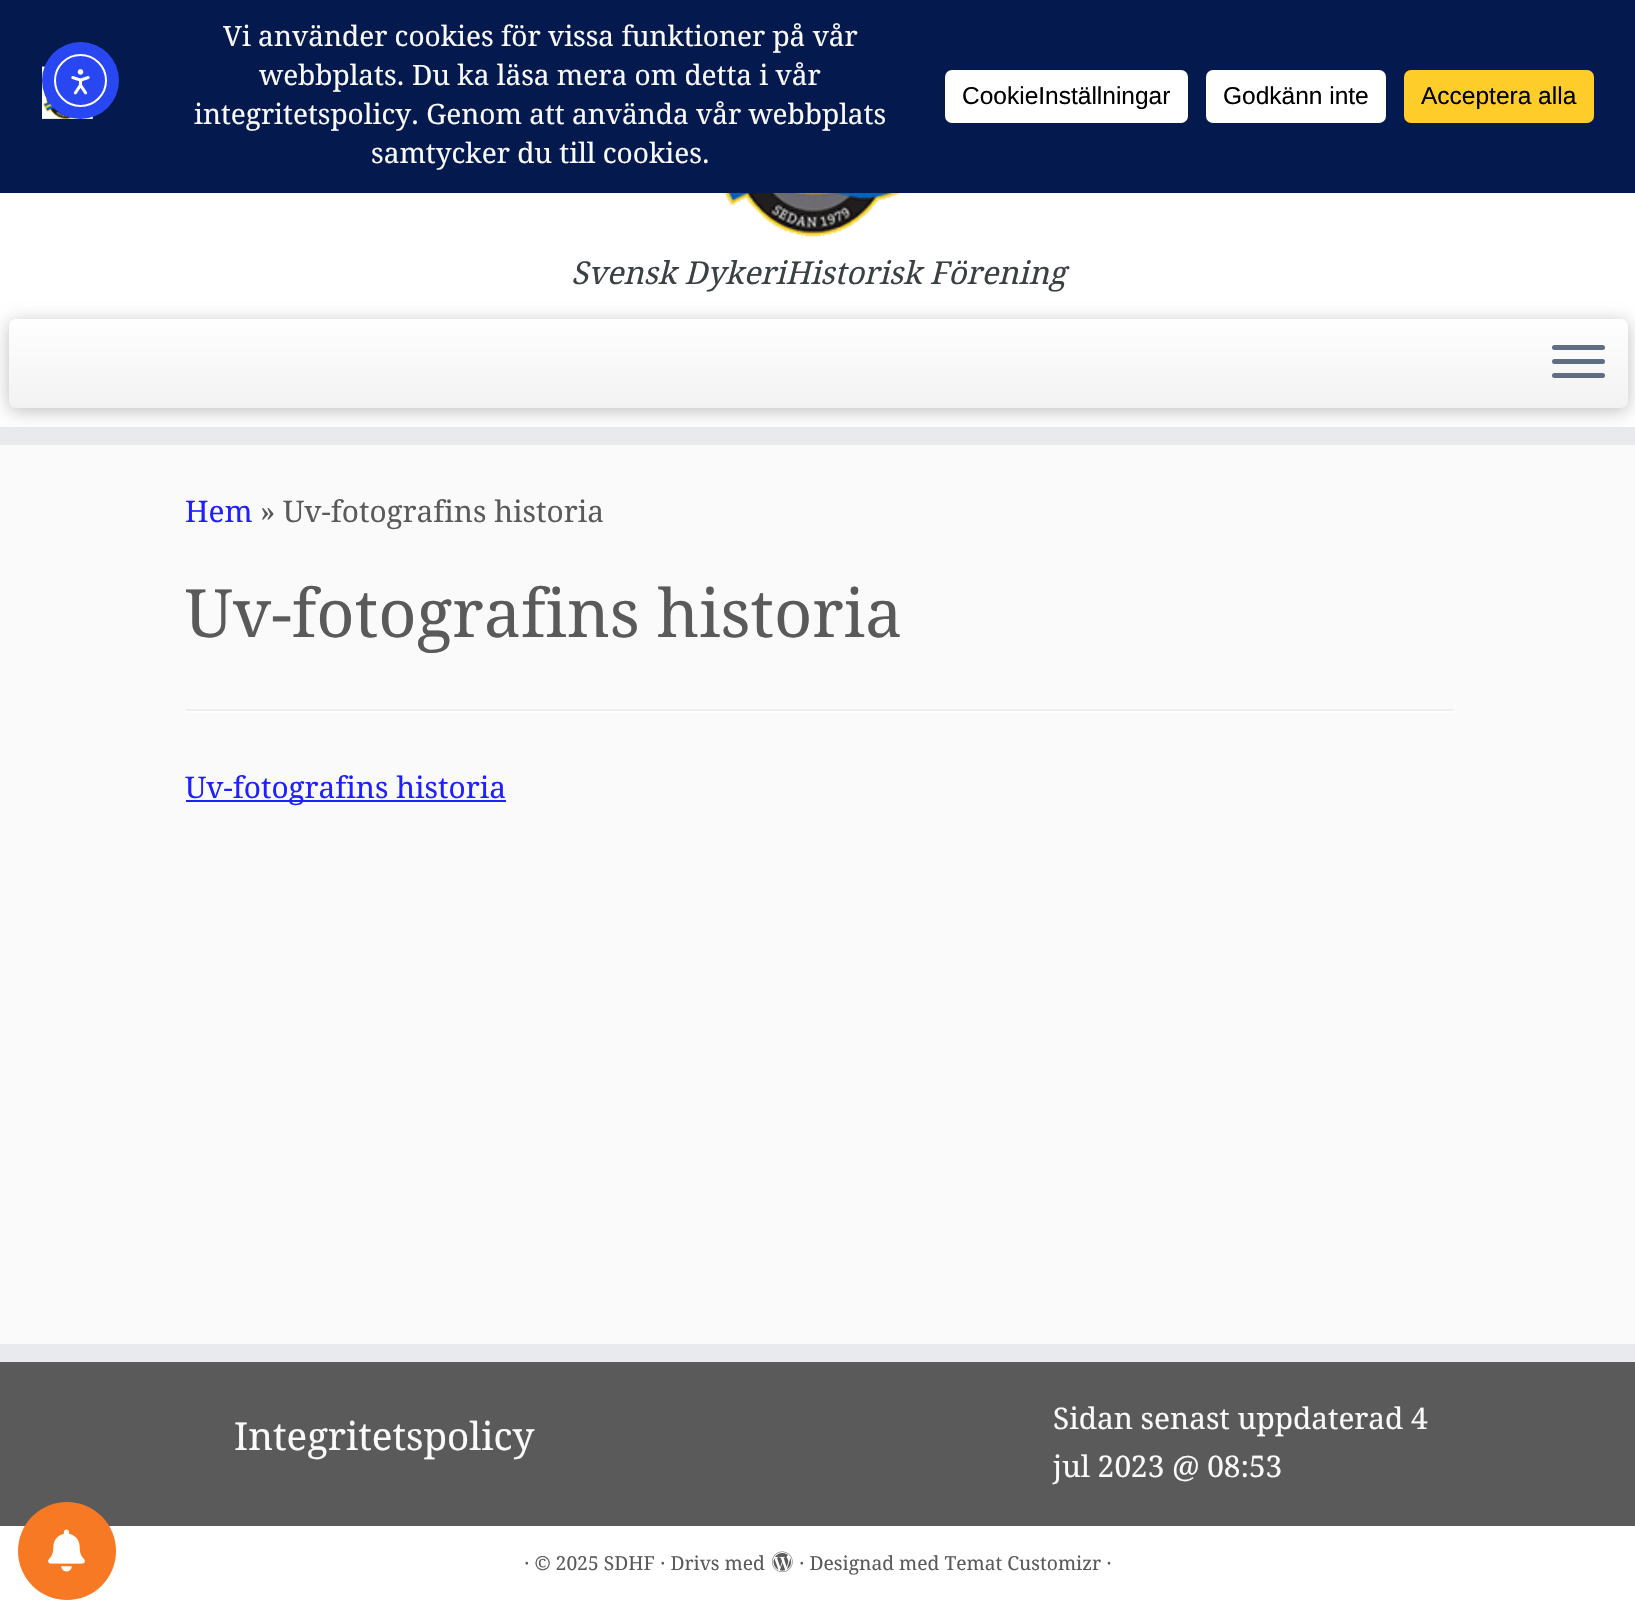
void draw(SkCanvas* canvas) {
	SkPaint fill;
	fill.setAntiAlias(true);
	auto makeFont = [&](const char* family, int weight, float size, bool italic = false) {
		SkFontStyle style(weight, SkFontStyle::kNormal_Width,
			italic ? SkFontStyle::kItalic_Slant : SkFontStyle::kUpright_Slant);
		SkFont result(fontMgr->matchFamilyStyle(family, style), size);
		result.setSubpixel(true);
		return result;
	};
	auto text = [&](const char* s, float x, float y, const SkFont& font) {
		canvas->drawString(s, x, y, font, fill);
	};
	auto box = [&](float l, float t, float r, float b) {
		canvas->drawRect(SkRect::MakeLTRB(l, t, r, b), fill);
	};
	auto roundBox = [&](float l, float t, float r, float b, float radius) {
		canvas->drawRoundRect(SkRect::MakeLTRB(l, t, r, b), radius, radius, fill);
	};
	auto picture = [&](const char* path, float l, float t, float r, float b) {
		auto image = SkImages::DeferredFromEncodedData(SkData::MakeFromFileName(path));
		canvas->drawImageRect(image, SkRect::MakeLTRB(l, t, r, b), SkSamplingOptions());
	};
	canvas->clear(0xFFFAFAFA);
	fill.setColor(0xFF04194E);
	box(0, 0, 1635, 193);
	picture("image1.png", 42, 66, 93, 119);
	fill.setColor(0xFF2847F3);
	canvas->drawCircle(80.5f, 80.5f, 38.5f, fill);
	fill.setStyle(SkPaint::kStroke_Style);
	fill.setStrokeWidth(2);
	fill.setColor(0xFFFFFFFF);
	canvas->drawCircle(80.5f, 80.5f, 25.5f, fill);
	picture("image0.png", 71, 69, 90, 95);
	fill.setStyle(SkPaint::kFill_Style);
	roundBox(945, 70, 1188, 123, 7);
	roundBox(1206, 70, 1386, 123, 7);
	fill.setColor(0xFFFFCD2A);
	roundBox(1404, 70, 1594, 123, 7);
	fill.setColor(0xFF5A5A5A);
	box(0, 1362, 1635, 1526);
	fill.setColor(0xFFFFFFFF);
	box(0, 1526, 1635, 1617);
	fill.setColor(0xFFF77924);
	canvas->drawCircle(67, 1551, 49, fill);
	picture("image2.png", 48, 1529, 85, 1572);
	fill.setColor(0xFFFFFFFF);
	box(0, 193, 1635, 427);
	fill.setColor(0xFFE9EAEE);
	box(0, 427, 1635, 445);
	picture("image3.png", 724, 193, 900, 237);
	fill.setColor(0x40000000);
	fill.setMaskFilter(SkMaskFilter::MakeBlur(kNormal_SkBlurStyle, 9));
	canvas->drawRoundRect(SkRect::MakeLTRB(9, 322, 1628, 411), 7, 7, fill);
	fill.setMaskFilter(nullptr);
	{
		const SkColor colors[] = {0xFFFFFFFF, 0xFFF2F2F2};
		const float stops[] = {0, 1};
		const SkPoint ends[] = {{818, 318}, {818, 408}};
		fill.setShader(SkGradientShader::MakeLinear(ends, colors, stops, 2, SkTileMode::kClamp));
		fill.setAlpha(255);
	}
	roundBox(9, 319, 1628, 408, 7);
	fill.setShader(nullptr);
	fill.setColor(0xFF5F6F81);
	roundBox(1552, 345, 1605, 350, 2.5f);
	roundBox(1552, 359, 1605, 364, 2.5f);
	roundBox(1552, 373, 1605, 378, 2.5f);
	fill.setColor(0xFFEEEEEE);
	box(186, 709, 1453, 711);
	fill.setColor(0xFFFFFFFF);
	box(186, 711, 1453, 713);
	fill.setColor(0xFF2020FF);
	box(186, 800, 506, 802);
	fill.setColor(0xFFE9EAEE);
	box(0, 1344, 1635, 1362);
	picture("image4.png", 772, 1551, 793, 1573);
	auto font1 = makeFont("Droid Serif", 400, 28);
	fill.setColor(0xFFFAFAFA);
	text("Vi använder cookies för vissa funktioner på vår", 223, 46, font1);
	text("webbplats. Du ka läsa mera om detta i vår", 259, 85, font1);
	text("integritetspolicy. Genom att använda vår webbplats", 194, 124, font1);
	text("samtycker du till cookies.", 371, 163, font1);
	auto font2 = makeFont("Liberation Sans", 400, 24.5f);
	fill.setColor(0xFF000000);
	text("CookieInställningar", 962, 104, font2);
	text("Godkänn inte", 1223, 104, font2);
	text("Acceptera alla", 1421, 104, font2);
	auto font3 = makeFont("Droid Serif", 400, 31.5f, true);
	fill.setColor(0xFF394143);
	text("Svensk DykeriHistorisk Förening", 571, 284, font3);
	auto font4 = makeFont("Droid Serif", 400, 29.75f);
	fill.setColor(0xFF2020FF);
	text("Hem", 185, 522, font4);
	fill.setColor(0xFF5A5A5A);
	text("» Uv-fotografins historia", 260, 522, font4);
	auto font5 = makeFont("Droid Serif", 400, 66.5f);
	text("Uv-fotografins historia", 185, 637, font5);
	fill.setColor(0xFF2020FF);
	text("Uv-fotografins historia", 185, 798, font4);
	auto font6 = makeFont("Droid Serif", 400, 38.5f);
	fill.setColor(0xFFFAFAFA);
	text("Integritetspolicy", 234, 1450, font6);
	text("Sidan senast uppdaterad 4", 1053, 1429, font4);
	text("jul 2023 @ 08:53", 1053, 1477, font4);
	auto font7 = makeFont("Droid Serif", 400, 19.25f);
	fill.setColor(0xFF5A5A5A);
	text("· © 2025 SDHF · Drivs med", 524, 1570, font7);
	text("· Designad med Temat Customizr ·", 799, 1570, font7);
}
